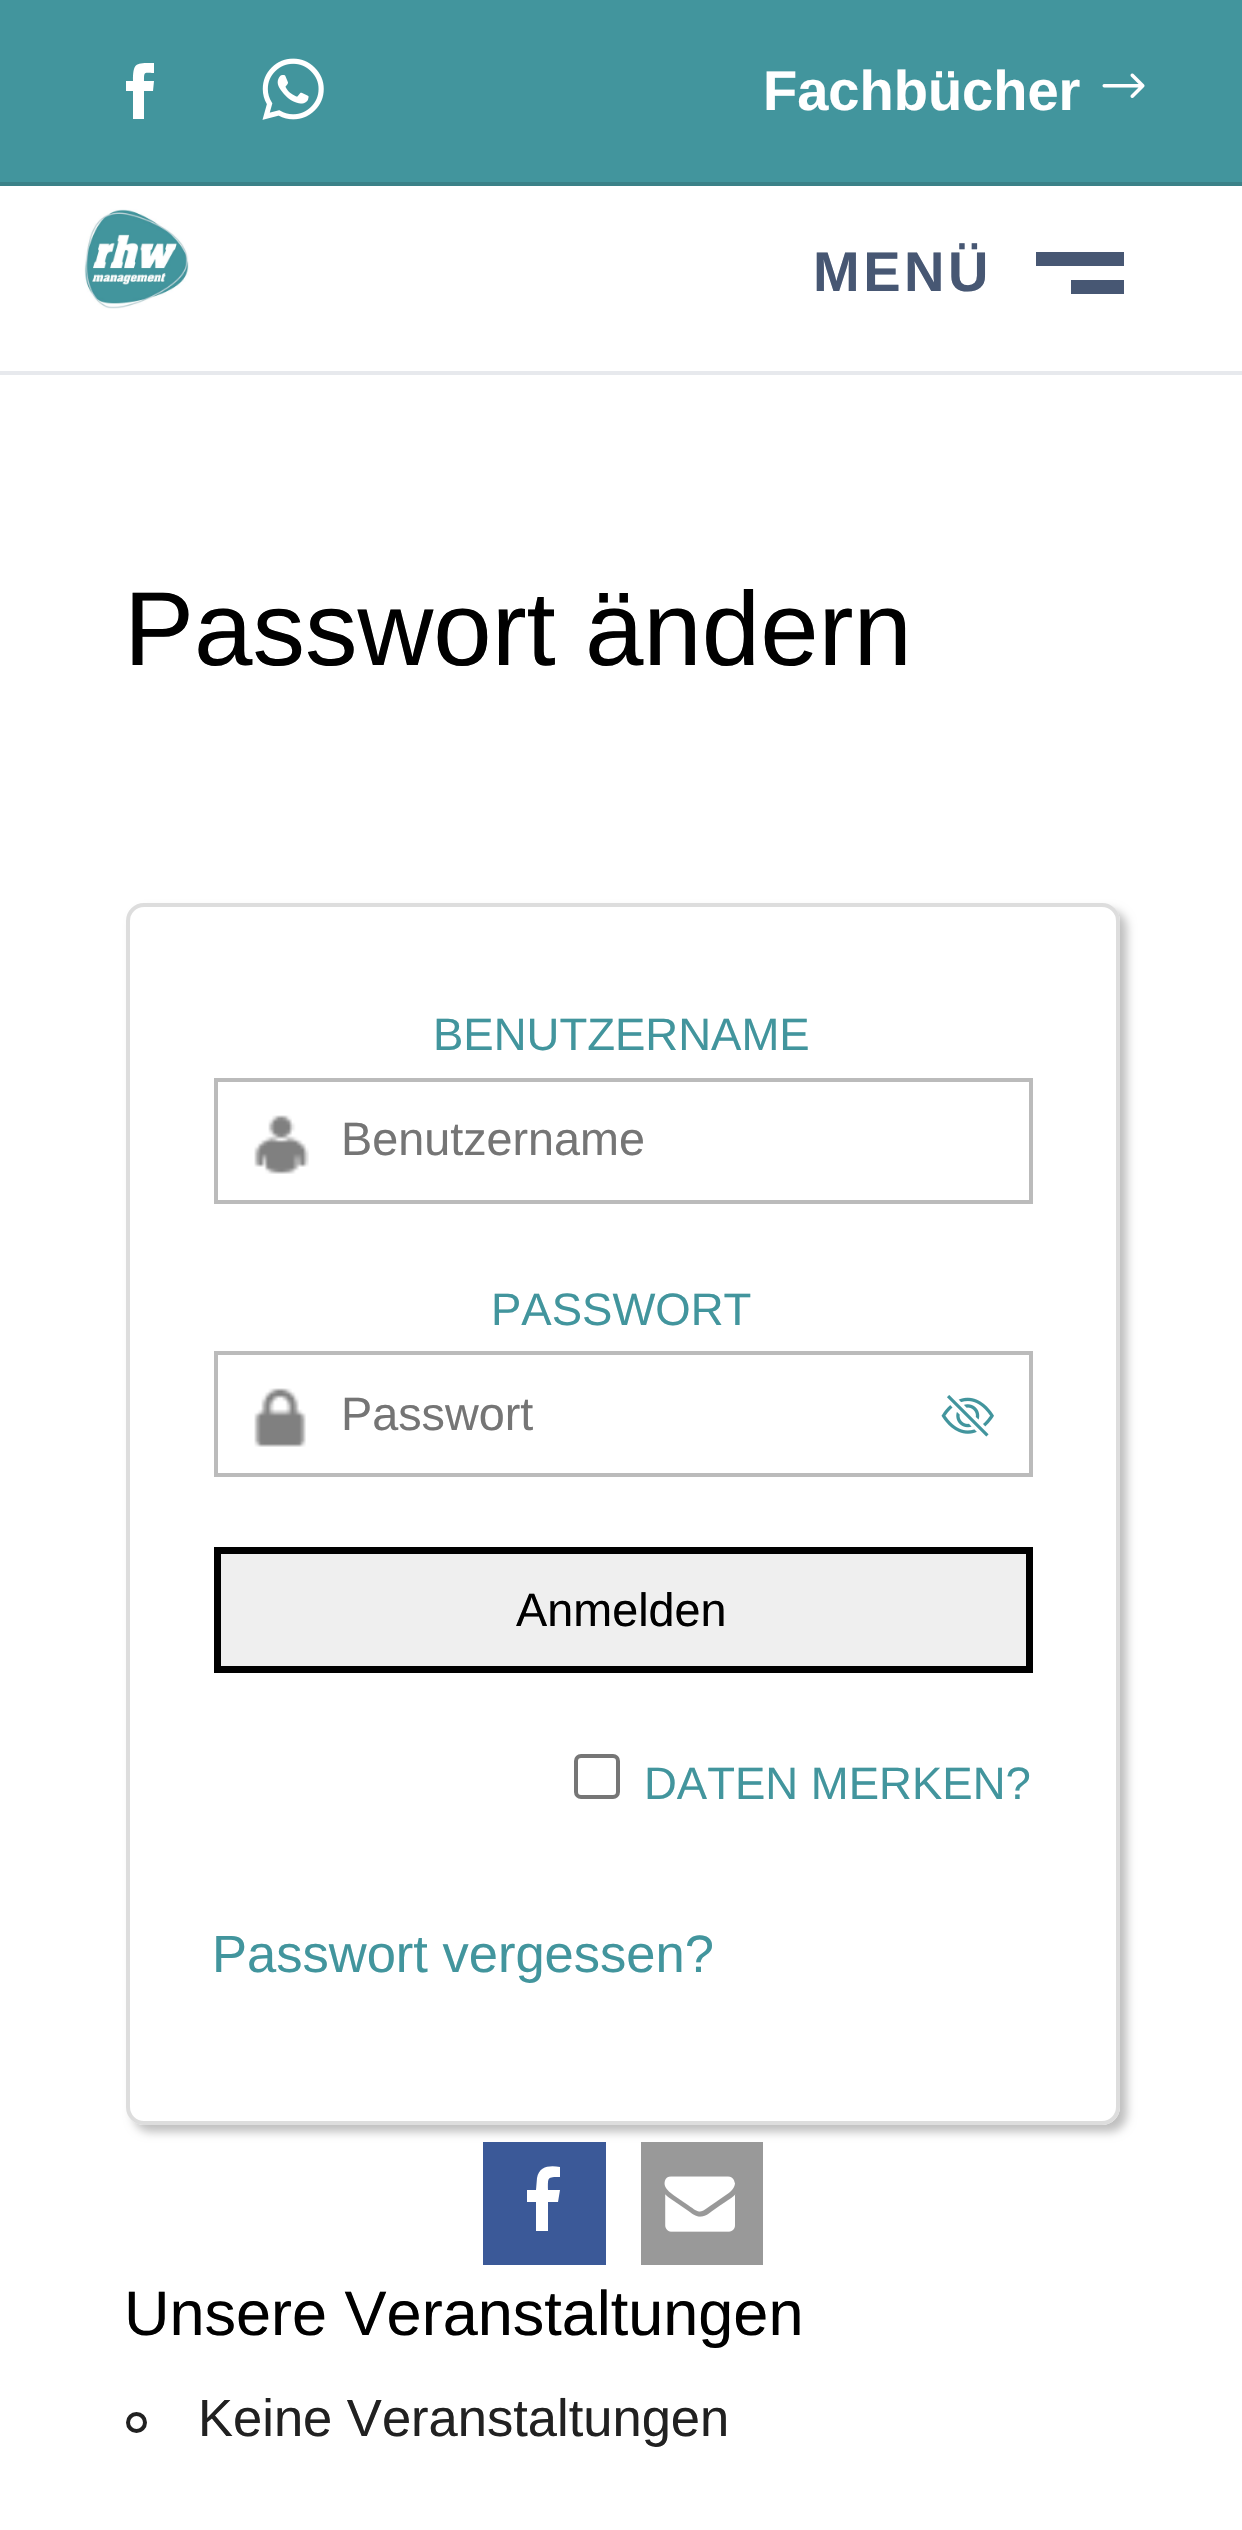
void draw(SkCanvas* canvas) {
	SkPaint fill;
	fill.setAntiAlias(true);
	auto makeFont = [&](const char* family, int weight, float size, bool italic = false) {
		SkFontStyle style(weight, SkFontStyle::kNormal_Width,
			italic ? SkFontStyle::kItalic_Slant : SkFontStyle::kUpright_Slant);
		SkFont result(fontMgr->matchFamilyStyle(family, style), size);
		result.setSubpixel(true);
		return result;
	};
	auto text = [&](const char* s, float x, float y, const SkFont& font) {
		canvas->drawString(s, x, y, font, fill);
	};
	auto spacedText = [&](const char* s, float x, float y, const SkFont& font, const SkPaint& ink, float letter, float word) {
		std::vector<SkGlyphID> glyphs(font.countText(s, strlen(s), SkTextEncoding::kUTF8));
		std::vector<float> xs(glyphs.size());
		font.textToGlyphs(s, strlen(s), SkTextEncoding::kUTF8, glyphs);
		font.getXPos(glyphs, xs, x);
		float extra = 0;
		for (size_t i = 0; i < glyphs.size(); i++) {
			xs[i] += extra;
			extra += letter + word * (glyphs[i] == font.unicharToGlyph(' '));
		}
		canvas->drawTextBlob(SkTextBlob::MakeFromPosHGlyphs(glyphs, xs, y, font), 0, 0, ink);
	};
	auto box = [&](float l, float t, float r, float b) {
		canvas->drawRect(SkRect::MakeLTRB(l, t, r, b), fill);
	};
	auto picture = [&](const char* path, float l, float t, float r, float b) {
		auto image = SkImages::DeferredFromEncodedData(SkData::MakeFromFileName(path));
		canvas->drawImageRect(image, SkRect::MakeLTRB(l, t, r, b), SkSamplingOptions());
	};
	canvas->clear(0xFFFFFFFF);
	fill.setColor(0xFF42959D);
	box(0, 0, 1242, 182);
	fill.setColor(0xFF3B8188);
	box(0, 182, 1242, 186);
	fill.setColor(0xFFFFFFFF);
	canvas->drawPath(SkPathBuilder().moveTo(133, 119).lineTo(144, 119).lineTo(144, 91).lineTo(153, 91).lineTo(154, 81).lineTo(144, 81).cubicTo(144, 71, 144, 73, 154, 73).lineTo(154, 63).cubicTo(136, 63, 133, 62, 133, 81).lineTo(126, 81).lineTo(126, 91).lineTo(133, 91).close().detach(), fill);
	picture("image0.png", 262, 58, 324, 120);
	picture("image1.png", 1102, 73, 1145, 98);
	fill.setColor(0xFFE7E9ED);
	box(0, 371, 1242, 375);
	picture("image2.png", 84, 209, 189, 309);
	fill.setColor(0xFF475773);
	box(1036, 252, 1124, 266);
	box(1071, 280, 1124, 294);
	canvas->save();
	canvas->clipPath(SkPathBuilder(SkPathFillType::kEvenOdd).moveTo(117, 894).lineTo(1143, 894).lineTo(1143, 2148).lineTo(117, 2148).close().moveTo(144, 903).lineTo(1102, 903).cubicTo(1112, 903, 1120, 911, 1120, 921).lineTo(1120, 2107).cubicTo(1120, 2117, 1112, 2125, 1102, 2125).lineTo(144, 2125).cubicTo(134, 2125, 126, 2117, 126, 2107).lineTo(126, 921).cubicTo(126, 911, 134, 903, 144, 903).close().detach(), true);
	fill.setColor(0x40000000);
	fill.setMaskFilter(SkMaskFilter::MakeBlur(kNormal_SkBlurStyle, 5));
	canvas->drawRoundRect(SkRect::MakeLTRB(133, 910, 1127, 2132), 18, 18, fill);
	fill.setMaskFilter(nullptr);
	canvas->restore();
	fill.setStyle(SkPaint::kStroke_Style);
	fill.setStrokeWidth(4);
	fill.setColor(0xFFDDDDDD);
	canvas->drawRoundRect(SkRect::MakeLTRB(128, 905, 1118, 2123), 16, 16, fill);
	picture("image3.png", 254, 1115, 309, 1174);
	fill.setColor(0xFFBBBBBB);
	canvas->drawRect(SkRect::MakeLTRB(216, 1080, 1031, 1202), fill);
	picture("image4.png", 254, 1388, 306, 1447);
	canvas->drawRect(SkRect::MakeLTRB(216, 1353, 1031, 1475), fill);
	picture("image5.png", 941, 1395, 994, 1437);
	fill.setStyle(SkPaint::kFill_Style);
	fill.setColor(0xFFEFEFEF);
	canvas->drawRect(SkRect::MakeLTRB(217.5f, 1550.5f, 1029.5f, 1669.5f), fill);
	fill.setStyle(SkPaint::kStroke_Style);
	fill.setStrokeWidth(7);
	fill.setColor(0xFF000000);
	canvas->drawRect(SkRect::MakeLTRB(217.5f, 1550.5f, 1029.5f, 1669.5f), fill);
	fill.setStrokeWidth(4);
	fill.setColor(0xFF767676);
	canvas->drawRoundRect(SkRect::MakeLTRB(576, 1756, 618, 1797), 5, 5, fill);
	fill.setStyle(SkPaint::kFill_Style);
	fill.setColor(0xFF3B5998);
	box(483, 2142, 606, 2265);
	fill.setColor(0xFFFFFFFF);
	canvas->drawPath(SkPathBuilder().moveTo(560, 2167).lineTo(560, 2177).cubicTo(547, 2177, 548, 2177, 548, 2190).lineTo(560, 2190).lineTo(558, 2202).lineTo(548, 2202).lineTo(548, 2231).lineTo(536, 2231).lineTo(536, 2202).lineTo(527, 2202).lineTo(527, 2190).lineTo(536, 2190).lineTo(537, 2178).cubicTo(539, 2166, 550, 2165, 560, 2167).close().detach(), fill);
	fill.setColor(0xFF999999);
	box(641, 2142, 763, 2265);
	picture("image6.png", 664, 2176, 736, 2232);
	fill.setStyle(SkPaint::kStroke_Style);
	fill.setColor(0xFF212121);
	canvas->drawCircle(136.5f, 2422.5f, 8.5f, fill);
	auto font1 = makeFont("Liberation Sans", 700, 56);
	fill.setStyle(SkPaint::kFill_Style);
	fill.setColor(0xFFFFFFFF);
	text("Fachbücher", 763, 110, font1);
	fill.setColor(0xFF475773);
	spacedText("MENÜ", 813, 291, font1, fill, 3.5f, 0);
	auto font2 = makeFont("Liberation Sans", 400, 105);
	fill.setColor(0xFF000000);
	text("Passwort ändern", 124, 665, font2);
	auto font3 = makeFont("Liberation Sans", 400, 45.5f);
	fill.setColor(0xFF42959D);
	text("BENUTZERNAME", 433, 1050, font3);
	auto font4 = makeFont("Liberation Sans", 400, 46.75f);
	fill.setColor(0xFF757575);
	text("Benutzername", 341, 1155, font4);
	fill.setColor(0xFF42959D);
	text("PASSWORT", 491, 1325, font3);
	fill.setColor(0xFF757575);
	text("Passwort", 341, 1430, font4);
	fill.setColor(0xFF000000);
	text("Anmelden", 516, 1626, font4);
	fill.setColor(0xFF42959D);
	text("DATEN MERKEN?", 644, 1799, font3);
	auto font5 = makeFont("Liberation Sans", 400, 52.5f);
	text("Passwort vergessen?", 212, 1972, font5);
	auto font6 = makeFont("Liberation Sans", 400, 63);
	fill.setColor(0xFF000000);
	text("Unsere Veranstaltungen", 124, 2335, font6);
	fill.setColor(0xFF212121);
	text("Keine Veranstaltungen", 198, 2436, font5);
}
